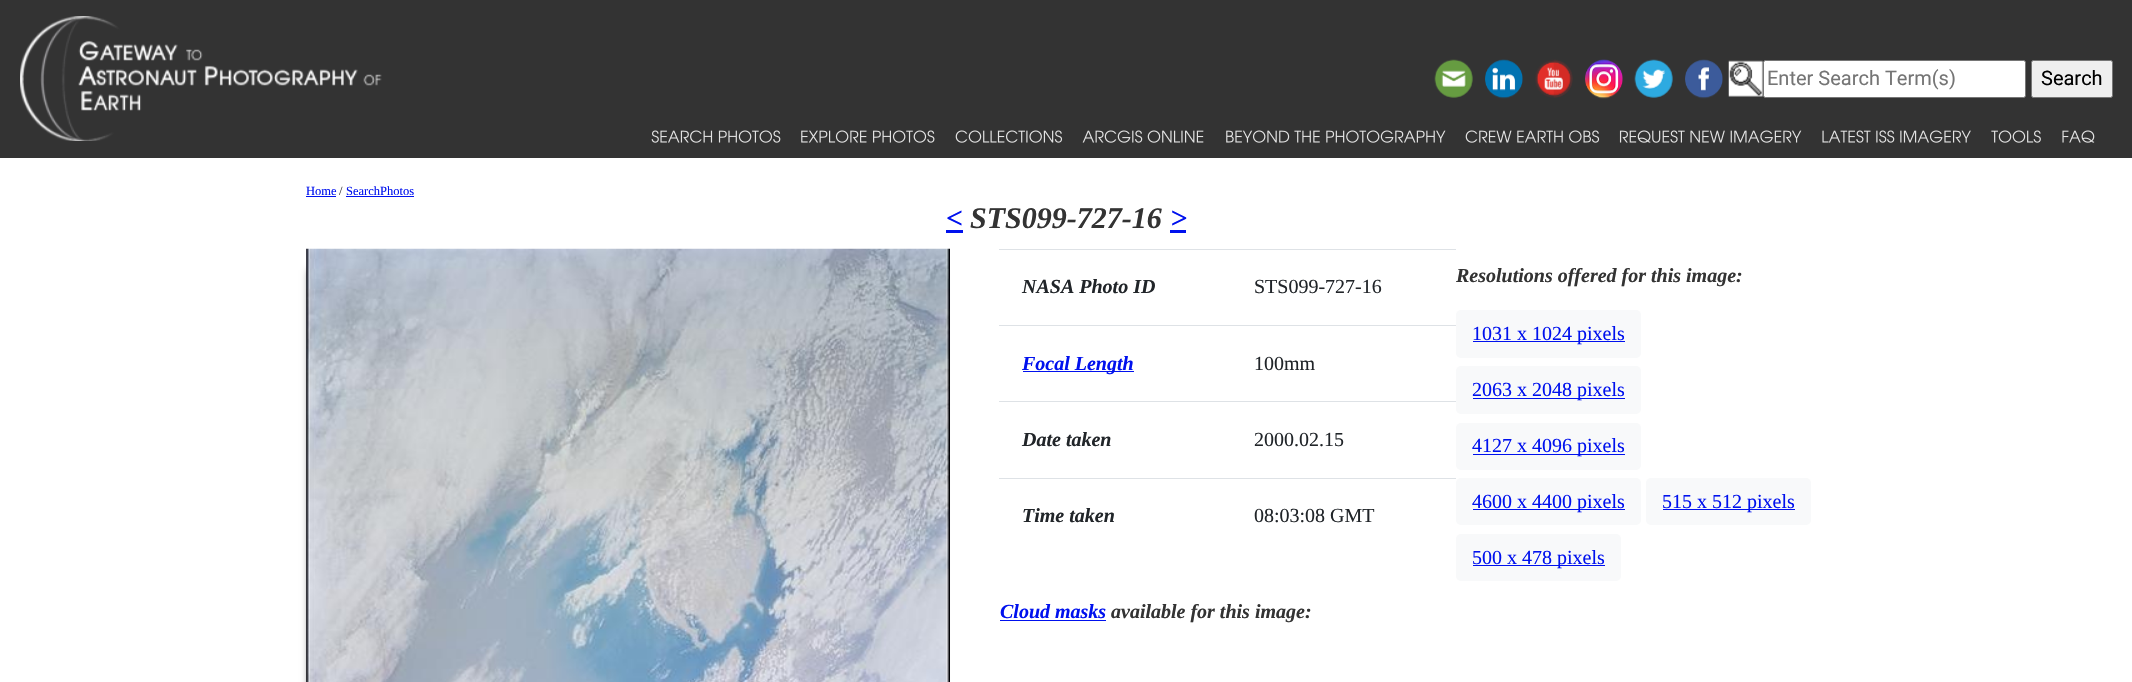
void draw(SkCanvas* canvas) {
	SkPaint fill;
	fill.setAntiAlias(true);
	auto makeFont = [&](const char* family, int weight, float size, bool italic = false) {
		SkFontStyle style(weight, SkFontStyle::kNormal_Width,
			italic ? SkFontStyle::kItalic_Slant : SkFontStyle::kUpright_Slant);
		SkFont result(fontMgr->matchFamilyStyle(family, style), size);
		result.setSubpixel(true);
		return result;
	};
	auto text = [&](const char* s, float x, float y, const SkFont& font) {
		canvas->drawString(s, x, y, font, fill);
	};
	auto box = [&](float l, float t, float r, float b) {
		canvas->drawRect(SkRect::MakeLTRB(l, t, r, b), fill);
	};
	auto roundBox = [&](float l, float t, float r, float b, float radius) {
		canvas->drawRoundRect(SkRect::MakeLTRB(l, t, r, b), radius, radius, fill);
	};
	auto picture = [&](const char* path, float l, float t, float r, float b) {
		auto image = SkImages::DeferredFromEncodedData(SkData::MakeFromFileName(path));
		canvas->drawImageRect(image, SkRect::MakeLTRB(l, t, r, b), SkSamplingOptions());
	};
	canvas->clear(0xFFFFFFFF);
	fill.setColor(0xFF333333);
	box(0, 0, 2132, 158);
	picture("image0.png", 20, 16, 382, 141);
	picture("image1.png", 1434, 59, 1473, 98);
	picture("image2.png", 1485, 59, 1523, 99);
	picture("image3.png", 1535, 59, 1573, 98);
	picture("image4.png", 1585, 59, 1623, 99);
	picture("image5.png", 1634, 59, 1673, 98);
	picture("image6.png", 1685, 59, 1723, 99);
	picture("image7.png", 1728, 60, 1763, 97);
	fill.setColor(0xFFFFFFFF);
	canvas->drawRoundRect(SkRect::MakeLTRB(1763.5f, 60.5f, 2025.5f, 97.5f), 2, 2, fill);
	fill.setStyle(SkPaint::kStroke_Style);
	fill.setStrokeWidth(1);
	fill.setColor(0xFF767676);
	canvas->drawRoundRect(SkRect::MakeLTRB(1763.5f, 60.5f, 2025.5f, 97.5f), 2, 2, fill);
	fill.setStyle(SkPaint::kFill_Style);
	fill.setColor(0xFFEFEFEF);
	canvas->drawRoundRect(SkRect::MakeLTRB(2031.5f, 60.5f, 2112.5f, 97.5f), 2, 2, fill);
	fill.setStyle(SkPaint::kStroke_Style);
	fill.setColor(0xFF767676);
	canvas->drawRoundRect(SkRect::MakeLTRB(2031.5f, 60.5f, 2112.5f, 97.5f), 2, 2, fill);
	picture("image8.png", 651, 130, 781, 143);
	picture("image9.png", 801, 130, 935, 143);
	picture("image10.png", 955, 130, 1063, 143);
	picture("image11.png", 1082, 130, 1204, 143);
	picture("image12.png", 1226, 130, 1446, 143);
	picture("image13.png", 1465, 130, 1600, 143);
	picture("image14.png", 1619, 130, 1802, 143);
	picture("image15.png", 1822, 130, 1971, 143);
	picture("image16.png", 1991, 130, 2041, 143);
	picture("image17.png", 2062, 130, 2095, 143);
	fill.setStyle(SkPaint::kFill_Style);
	fill.setColor(0xFF0011EE);
	box(306, 196, 336, 197);
	box(346, 196, 414, 197);
	box(946, 230, 963, 233);
	box(1170, 230, 1186, 233);
	fill.setColor(0xFF333333);
	fill.setMaskFilter(SkMaskFilter::MakeBlur(kNormal_SkBlurStyle, 4));
	canvas->drawRect(SkRect::MakeLTRB(310, 270, 939, 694), fill);
	fill.setMaskFilter(nullptr);
	picture("image18.png", 306, 248, 950, 682);
	fill.setColor(0xFFF8F9FA);
	roundBox(1456, 310, 1641, 358, 5);
	fill.setColor(0xFF0011EE);
	box(1473, 341, 1625, 342);
	fill.setColor(0xFFF8F9FA);
	roundBox(1456, 366, 1641, 414, 5);
	fill.setColor(0xFF0011EE);
	box(1473, 398, 1625, 399);
	fill.setColor(0xFFF8F9FA);
	roundBox(1456, 423, 1641, 470, 5);
	fill.setColor(0xFF0011EE);
	box(1473, 454, 1625, 455);
	fill.setColor(0xFFF8F9FA);
	roundBox(1456, 478, 1641, 525, 5);
	fill.setColor(0xFF0011EE);
	box(1473, 509, 1625, 510);
	fill.setColor(0xFFF8F9FA);
	roundBox(1646, 478, 1811, 525, 5);
	fill.setColor(0xFF0011EE);
	box(1663, 509, 1795, 510);
	fill.setColor(0xFFF8F9FA);
	roundBox(1456, 534, 1621, 581, 5);
	fill.setColor(0xFF0011EE);
	box(1473, 565, 1605, 566);
	box(1000, 620, 1106, 621);
	fill.setColor(0xFFDEE2E6);
	box(999, 249, 1456, 250);
	fill.setColor(0xFF0011EE);
	box(1023, 371, 1134, 372);
	fill.setColor(0xFFDEE2E6);
	box(999, 325, 1456, 326);
	box(999, 401, 1456, 402);
	box(999, 478, 1456, 479);
	auto font1 = makeFont("Roboto", 400, 20);
	fill.setColor(0xFF757575);
	text("Enter Search Term(s)", 1767, 85, font1);
	fill.setColor(0xFF000000);
	text("Search", 2041, 85, font1);
	auto font2 = makeFont("Liberation Serif", 400, 12.5f);
	fill.setColor(0xFF0011EE);
	text("Home", 306, 195, font2);
	fill.setColor(0xFF333333);
	text("/", 339, 195, font2);
	fill.setColor(0xFF0011EE);
	text("SearchPhotos", 346, 195, font2);
	auto font3 = makeFont("Liberation Serif", 700, 30, true);
	text("<", 946, 228, font3);
	fill.setColor(0xFF333333);
	text("STS099-727-16", 970, 228, font3);
	fill.setColor(0xFF0011EE);
	text(">", 1170, 228, font3);
	auto font4 = makeFont("Liberation Serif", 700, 20, true);
	fill.setColor(0xFF333333);
	text("Resolutions offered for this image:", 1456, 282, font4);
	auto font5 = makeFont("Liberation Serif", 400, 20);
	fill.setColor(0xFF0011EE);
	text("1031 x 1024 pixels", 1472, 340, font5);
	text("2063 x 2048 pixels", 1472, 396, font5);
	text("4127 x 4096 pixels", 1472, 452, font5);
	text("4600 x 4400 pixels", 1472, 508, font5);
	text("515 x 512 pixels", 1662, 508, font5);
	text("500 x 478 pixels", 1472, 564, font5);
	text("Cloud masks", 1000, 618, font4);
	fill.setColor(0xFF333333);
	text("available for this image:", 1111, 618, font4);
	fill.setColor(0xFF212529);
	text("NASA Photo ID", 1022, 293, font4);
	text("STS099-727-16", 1254, 293, font5);
	fill.setColor(0xFF0011EE);
	text("Focal Length", 1022, 370, font4);
	fill.setColor(0xFF212529);
	text("100mm", 1254, 370, font5);
	text("Date taken", 1022, 446, font4);
	text("2000.02.15", 1254, 446, font5);
	text("Time taken", 1022, 522, font4);
	text("08:03:08 GMT", 1254, 522, font5);
}
